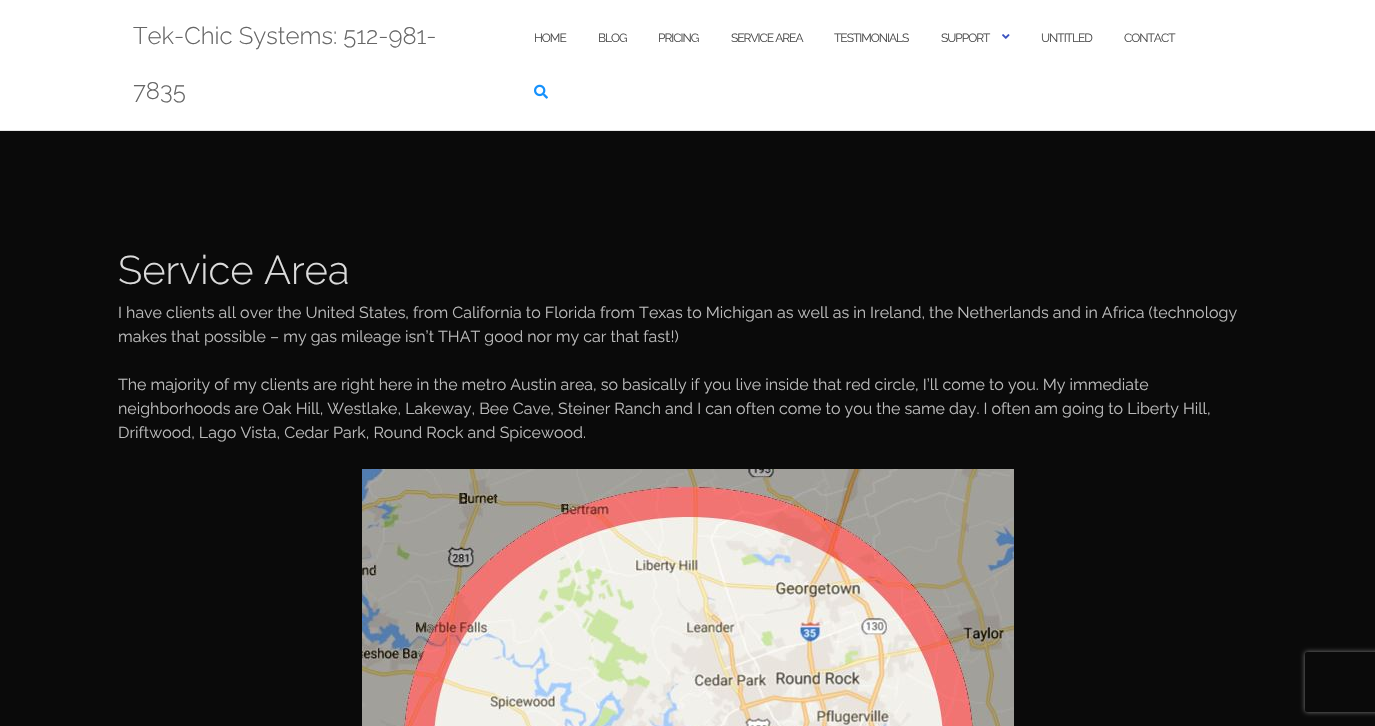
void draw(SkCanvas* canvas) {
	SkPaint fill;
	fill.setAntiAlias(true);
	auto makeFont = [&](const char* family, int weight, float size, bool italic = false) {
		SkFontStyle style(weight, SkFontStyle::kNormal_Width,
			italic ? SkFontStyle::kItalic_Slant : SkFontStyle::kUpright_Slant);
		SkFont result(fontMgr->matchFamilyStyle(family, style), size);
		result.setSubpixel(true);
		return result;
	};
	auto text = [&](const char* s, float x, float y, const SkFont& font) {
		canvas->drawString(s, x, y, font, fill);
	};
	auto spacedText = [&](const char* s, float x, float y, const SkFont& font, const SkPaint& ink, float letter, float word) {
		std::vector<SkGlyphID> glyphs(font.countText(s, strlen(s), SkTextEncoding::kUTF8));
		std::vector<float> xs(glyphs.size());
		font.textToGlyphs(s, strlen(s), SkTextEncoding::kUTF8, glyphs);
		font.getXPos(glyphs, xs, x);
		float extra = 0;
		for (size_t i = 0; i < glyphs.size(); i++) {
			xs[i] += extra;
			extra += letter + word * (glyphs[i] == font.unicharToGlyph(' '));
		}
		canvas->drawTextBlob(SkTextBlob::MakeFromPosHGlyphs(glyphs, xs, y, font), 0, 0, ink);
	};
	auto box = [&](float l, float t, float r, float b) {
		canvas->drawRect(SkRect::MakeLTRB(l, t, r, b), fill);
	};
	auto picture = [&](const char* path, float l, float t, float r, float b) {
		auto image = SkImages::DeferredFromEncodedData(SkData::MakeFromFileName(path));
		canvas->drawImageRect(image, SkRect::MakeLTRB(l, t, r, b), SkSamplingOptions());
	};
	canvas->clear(0xFF0A0A0A);
	fill.setColor(0xFFFFFFFF);
	box(0, 0, 1375, 130);
	fill.setColor(0xFFE6E6E6);
	box(0, 130, 1375, 131);
	picture("image0.png", 1002, 34, 1010, 39);
	picture("image1.png", 534, 84, 548, 99);
	picture("image2.png", 362, 469, 1014, 726);
	canvas->save();
	canvas->clipPath(SkPathBuilder(SkPathFillType::kEvenOdd).moveTo(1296, 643).lineTo(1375, 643).lineTo(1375, 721).lineTo(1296, 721).close().moveTo(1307, 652).lineTo(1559, 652).cubicTo(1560, 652, 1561, 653, 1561, 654).lineTo(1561, 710).cubicTo(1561, 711, 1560, 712, 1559, 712).lineTo(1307, 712).cubicTo(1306, 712, 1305, 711, 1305, 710).lineTo(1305, 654).cubicTo(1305, 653, 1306, 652, 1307, 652).close().detach(), true);
	fill.setColor(0xFF808080);
	fill.setMaskFilter(SkMaskFilter::MakeBlur(kNormal_SkBlurStyle, 2.5f));
	canvas->drawRoundRect(SkRect::MakeLTRB(1305, 652, 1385, 712), 2, 2, fill);
	fill.setMaskFilter(nullptr);
	canvas->restore();
	auto font1 = makeFont("Raleway", 300, 24);
	fill.setColor(0xFF666666);
	text("Tek-Chic Systems: 512-981-", 133, 44, font1);
	text("7835", 133, 99, font1);
	auto font2 = makeFont("Raleway", 400, 12);
	fill.setColor(0xFF4C4C4C);
	spacedText("HOME", 534, 42, font2, fill, -1, 0);
	spacedText("BLOG", 598, 42, font2, fill, -1, 0);
	spacedText("PRICING", 658, 42, font2, fill, -1, 0);
	spacedText("SERVICE AREA", 731, 42, font2, fill, -1, 0);
	spacedText("TESTIMONIALS", 834, 42, font2, fill, -1, 0);
	spacedText("SUPPORT", 941, 42, font2, fill, -1, 0);
	spacedText("UNTITLED", 1041, 42, font2, fill, -1, 0);
	spacedText("CONTACT", 1124, 42, font2, fill, -1, 0);
	auto font3 = makeFont("Raleway", 300, 40);
	fill.setColor(0xFFDBDBDB);
	text("Service Area", 118, 284, font3);
	auto font4 = makeFont("Raleway", 400, 16);
	fill.setColor(0xFFBBBBBB);
	text("I have clients all over the United States, from California to Florida from Texas to Michigan as well as in Ireland, the Netherlands and in Africa (technology", 118, 318, font4);
	text("makes that possible – my gas mileage isn’t THAT good nor my car that fast!)", 118, 342, font4);
	text("The majority of my clients are right here in the metro Austin area, so basically if you live inside that red circle, I’ll come to you. My immediate", 118, 390, font4);
	text("neighborhoods are Oak Hill, Westlake, Lakeway, Bee Cave, Steiner Ranch and I can often come to you the same day. I often am going to Liberty Hill,", 118, 414, font4);
	text("Driftwood, Lago Vista, Cedar Park, Round Rock and Spicewood.", 118, 438, font4);
}
